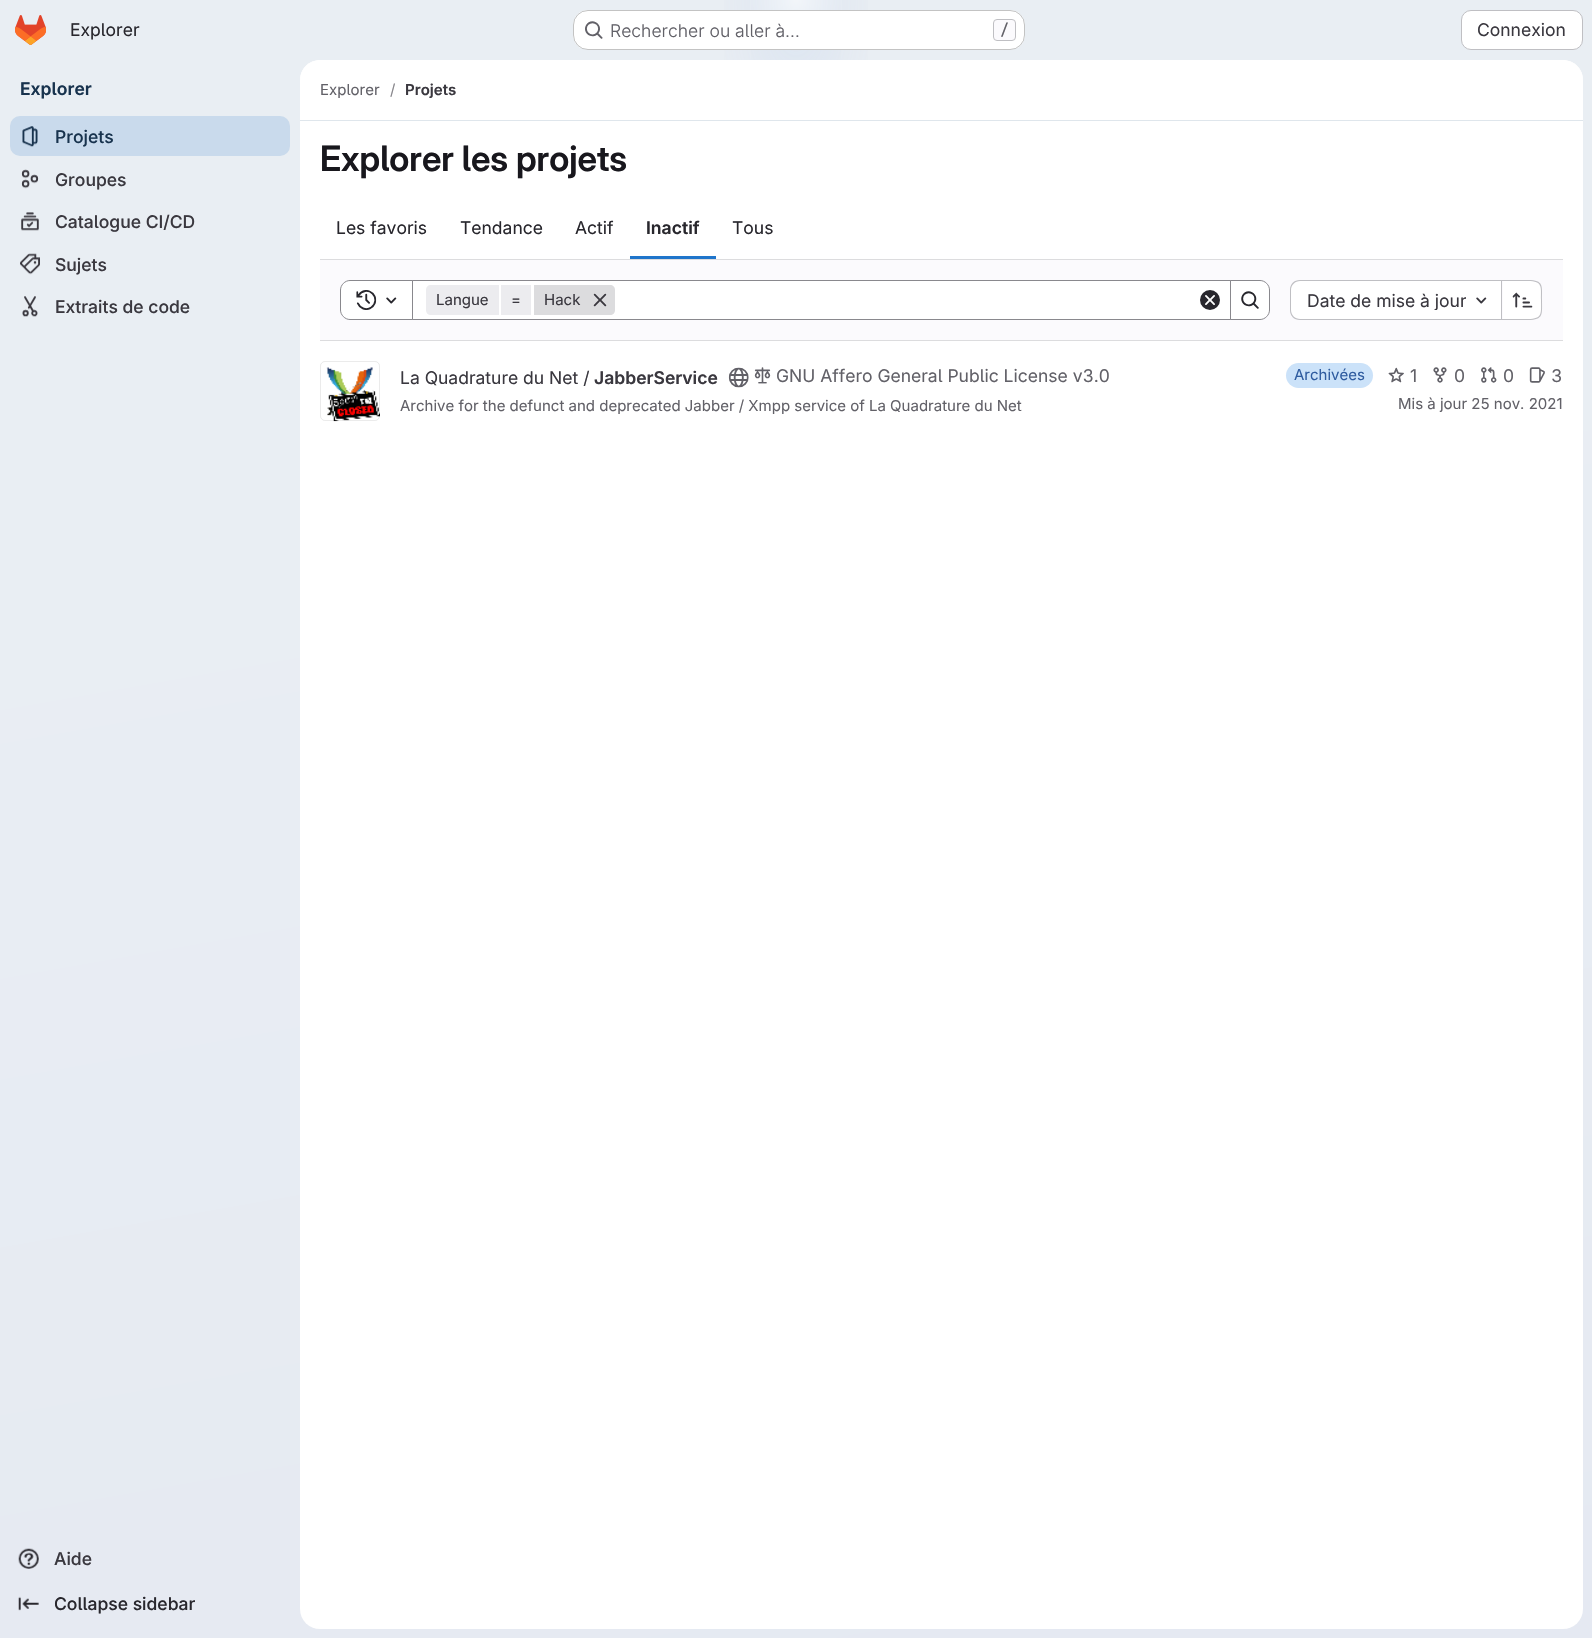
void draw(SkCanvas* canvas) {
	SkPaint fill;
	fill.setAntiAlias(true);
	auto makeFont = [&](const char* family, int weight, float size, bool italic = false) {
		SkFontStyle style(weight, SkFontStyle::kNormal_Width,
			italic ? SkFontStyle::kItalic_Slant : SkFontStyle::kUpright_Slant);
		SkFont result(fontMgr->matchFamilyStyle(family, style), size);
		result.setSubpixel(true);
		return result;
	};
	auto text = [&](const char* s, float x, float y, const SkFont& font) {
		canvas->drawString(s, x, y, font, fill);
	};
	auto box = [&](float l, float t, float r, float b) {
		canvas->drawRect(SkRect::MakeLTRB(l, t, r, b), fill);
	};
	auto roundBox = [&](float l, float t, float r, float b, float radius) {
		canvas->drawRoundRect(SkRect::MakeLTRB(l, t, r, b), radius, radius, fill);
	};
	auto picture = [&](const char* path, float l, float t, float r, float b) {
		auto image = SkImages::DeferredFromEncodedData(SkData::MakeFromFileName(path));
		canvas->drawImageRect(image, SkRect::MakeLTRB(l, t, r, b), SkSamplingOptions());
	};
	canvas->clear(0xFFFFFFFF);
	{
		const SkColor colors[] = {0xFFE5E9F2, 0xFFE9EEF3};
		const float stops[] = {0, 0.7f};
		const SkPoint ends[] = {{960, 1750}, {632, -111}};
		fill.setShader(SkGradientShader::MakeLinear(ends, colors, stops, 2, SkTileMode::kClamp));
		fill.setAlpha(255);
	}
	box(0, 0, 1592, 1638);
	{
		const SkColor colors[] = {0xFFDEE5F1, 0x00DEE5F1};
		const float stops[] = {0, 0.11f};
		SkMatrix m = SkMatrix::Translate(796, 0).preScale(796, 1639);
		fill.setShader(SkGradientShader::MakeRadial({0, 0}, 1, colors, stops, 2, SkTileMode::kClamp, 0, &m));
		fill.setAlpha(255);
	}
	box(724, 0, 868, 60);
	{
		const SkColor colors[] = {0xFFDEE7F1, 0x00DEE7F1};
		const float stops[] = {0, 0.08f};
		SkMatrix m = SkMatrix::Translate(796, 0).preScale(796, 1639);
		fill.setShader(SkGradientShader::MakeRadial({0, 0}, 1, colors, stops, 2, SkTileMode::kClamp, 0, &m));
		fill.setAlpha(255);
	}
	box(751, 0, 841, 60);
	{
		const SkColor colors[] = {0x99FFFFFF, 0x00FFFFFF};
		const float stops[] = {0, 0.03f};
		fill.setShader(SkGradientShader::MakeRadial({796, 0}, 1822, colors, stops, 2, SkTileMode::kClamp));
		fill.setAlpha(255);
	}
	box(750, 0, 842, 47);
	picture("image0.png", 15, 15, 46, 45);
	fill.setShader(nullptr);
	fill.setColor(0xFFFFFFFF);
	roundBox(573, 10, 1025, 50, 15);
	fill.setStyle(SkPaint::kStroke_Style);
	fill.setStrokeWidth(1);
	fill.setColor(0x3D050506);
	canvas->drawRoundRect(SkRect::MakeLTRB(573.5f, 10.5f, 1024.5f, 49.5f), 14.5f, 14.5f, fill);
	picture("image1.png", 585, 21, 603, 39);
	fill.setStyle(SkPaint::kFill_Style);
	fill.setColor(0xFFFBFAFD);
	canvas->drawRoundRect(SkRect::MakeLTRB(993.5f, 19.5f, 1015.5f, 40.5f), 3.5f, 3.5f, fill);
	fill.setStyle(SkPaint::kStroke_Style);
	fill.setColor(0xFFBFBFC3);
	canvas->drawRoundRect(SkRect::MakeLTRB(993.5f, 19.5f, 1015.5f, 40.5f), 3.5f, 3.5f, fill);
	fill.setStyle(SkPaint::kFill_Style);
	fill.setColor(0xFFFFFFFF);
	canvas->drawRoundRect(SkRect::MakeLTRB(1461.5f, 10.5f, 1582.5f, 49.5f), 9.5f, 9.5f, fill);
	fill.setStyle(SkPaint::kStroke_Style);
	fill.setColor(0xFFBFBFC3);
	canvas->drawRoundRect(SkRect::MakeLTRB(1461.5f, 10.5f, 1582.5f, 49.5f), 9.5f, 9.5f, fill);
	fill.setStyle(SkPaint::kFill_Style);
	fill.setColor(0xFFC9DAEC);
	roundBox(10, 116, 290, 156, 10);
	picture("image2.png", 22, 126, 38, 147);
	picture("image3.png", 21, 169, 39, 189);
	picture("image4.png", 21, 212, 39, 231);
	picture("image5.png", 20, 253, 40, 275);
	picture("image6.png", 22, 296, 38, 317);
	picture("image7.png", 18, 1548, 39, 1569);
	picture("image8.png", 18, 1596, 39, 1611);
	fill.setColor(0xFFFFFFFF);
	roundBox(300, 60, 1583, 1629, 20);
	canvas->drawPath(SkPathBuilder().moveTo(320, 60).lineTo(1563, 60).cubicTo(1574, 60, 1583, 69, 1583, 80).lineTo(1583, 121).lineTo(300, 121).lineTo(300, 80).cubicTo(300, 69, 309, 60, 320, 60).close().detach(), fill);
	fill.setColor(0xFFDFE6EC);
	box(300, 120, 1583, 121);
	fill.setColor(0xFF1F75CB);
	box(630, 256, 716, 259);
	fill.setColor(0xFFFBFAFD);
	box(320, 260, 1563, 340);
	fill.setColor(0xFFDCDCDE);
	box(320, 259, 1563, 260);
	box(320, 340, 1563, 341);
	fill.setColor(0xFFFFFFFF);
	box(413, 281, 1230, 319);
	fill.setStyle(SkPaint::kStroke_Style);
	fill.setColor(0xFF89888D);
	canvas->drawRect(SkRect::MakeLTRB(411.5f, 280.5f, 1230.5f, 319.5f), fill);
	fill.setStyle(SkPaint::kFill_Style);
	fill.setColor(0xFFFFFFFF);
	canvas->drawPath(SkPathBuilder().moveTo(350, 280.5f).lineTo(412.5f, 280.5f).lineTo(412.5f, 319.5f).lineTo(350, 319.5f).cubicTo(345, 319.5f, 340.5f, 315, 340.5f, 310).lineTo(340.5f, 290).cubicTo(340.5f, 285, 345, 280.5f, 350, 280.5f).close().detach(), fill);
	fill.setStyle(SkPaint::kStroke_Style);
	fill.setColor(0xFF89888D);
	canvas->drawPath(SkPathBuilder().moveTo(350, 280.5f).lineTo(412.5f, 280.5f).lineTo(412.5f, 319.5f).lineTo(350, 319.5f).cubicTo(345, 319.5f, 340.5f, 315, 340.5f, 310).lineTo(340.5f, 290).cubicTo(340.5f, 285, 345, 280.5f, 350, 280.5f).close().detach(), fill);
	picture("image9.png", 356, 290, 377, 310);
	picture("image10.png", 386, 297, 397, 304);
	fill.setStyle(SkPaint::kFill_Style);
	fill.setColor(0xFFECECEF);
	canvas->drawPath(SkPathBuilder().moveTo(431, 285).lineTo(499, 285).lineTo(499, 315).lineTo(431, 315).cubicTo(428, 315, 426, 313, 426, 310).lineTo(426, 290).cubicTo(426, 287, 428, 285, 431, 285).close().detach(), fill);
	box(501, 285, 531, 315);
	fill.setColor(0xFFDCDCDE);
	canvas->drawPath(SkPathBuilder().moveTo(534, 285).lineTo(610, 285).cubicTo(613, 285, 615, 287, 615, 290).lineTo(615, 310).cubicTo(615, 313, 613, 315, 610, 315).lineTo(534, 315).close().detach(), fill);
	picture("image11.png", 593, 293, 607, 307);
	picture("image12.png", 1200, 290, 1220, 310);
	fill.setColor(0xFFFFFFFF);
	canvas->drawPath(SkPathBuilder().moveTo(1230.5f, 280.5f).lineTo(1260, 280.5f).cubicTo(1265, 280.5f, 1269.5f, 285, 1269.5f, 290).lineTo(1269.5f, 310).cubicTo(1269.5f, 315, 1265, 319.5f, 1260, 319.5f).lineTo(1230.5f, 319.5f).close().detach(), fill);
	fill.setStyle(SkPaint::kStroke_Style);
	fill.setColor(0xFF89888D);
	canvas->drawPath(SkPathBuilder().moveTo(1230.5f, 280.5f).lineTo(1260, 280.5f).cubicTo(1265, 280.5f, 1269.5f, 285, 1269.5f, 290).lineTo(1269.5f, 310).cubicTo(1269.5f, 315, 1265, 319.5f, 1260, 319.5f).lineTo(1230.5f, 319.5f).close().detach(), fill);
	picture("image13.png", 1241, 291, 1259, 309);
	fill.setStyle(SkPaint::kFill_Style);
	fill.setColor(0xFFFFFFFF);
	canvas->drawPath(SkPathBuilder().moveTo(1300, 281).lineTo(1501, 281).lineTo(1501, 319).lineTo(1300, 319).cubicTo(1295, 319, 1291, 315, 1291, 310).lineTo(1291, 290).cubicTo(1291, 285, 1295, 281, 1300, 281).close().detach(), fill);
	fill.setColor(0xFFBFBFC3);
	canvas->drawPath(SkPathBuilder(SkPathFillType::kEvenOdd).moveTo(1300, 280).lineTo(1501, 280).lineTo(1501, 320).lineTo(1300, 320).cubicTo(1294, 320, 1290, 316, 1290, 310).lineTo(1290, 290).cubicTo(1290, 284, 1294, 280, 1300, 280).close().moveTo(1300, 281).lineTo(1501, 281).lineTo(1501, 319).lineTo(1300, 319).cubicTo(1295, 319, 1291, 315, 1291, 310).lineTo(1291, 290).cubicTo(1291, 285, 1295, 281, 1300, 281).close().detach(), fill);
	picture("image14.png", 1476, 297, 1487, 304);
	fill.setColor(0xFFFFFFFF);
	canvas->drawPath(SkPathBuilder().moveTo(1503, 281).lineTo(1532, 281).cubicTo(1537, 281, 1541, 285, 1541, 290).lineTo(1541, 310).cubicTo(1541, 315, 1537, 319, 1532, 319).lineTo(1503, 319).close().detach(), fill);
	fill.setColor(0xFFBFBFC3);
	canvas->drawPath(SkPathBuilder(SkPathFillType::kEvenOdd).moveTo(1502, 280).lineTo(1528, 280).cubicTo(1544, 280, 1542, 286, 1542, 300).cubicTo(1542, 314, 1544, 320, 1528, 320).lineTo(1502, 320).close().moveTo(1502, 281).lineTo(1528, 281).cubicTo(1543, 281, 1541, 287, 1541, 300).cubicTo(1541, 313, 1543, 319, 1528, 319).lineTo(1502, 319).close().detach(), fill);
	box(1501, 280, 1502, 320);
	picture("image15.png", 1512, 292, 1533, 308);
	picture("image16.png", 326, 367, 380, 422);
	fill.setStyle(SkPaint::kStroke_Style);
	fill.setColor(0x14050506);
	canvas->drawRoundRect(SkRect::MakeLTRB(320.5f, 361.5f, 379.5f, 420.5f), 4.5f, 4.5f, fill);
	picture("image17.png", 728, 367, 749, 388);
	picture("image18.png", 754, 367, 771, 384);
	fill.setStyle(SkPaint::kFill_Style);
	fill.setColor(0xFFCBE2F9);
	roundBox(1286, 363, 1373, 388, 12.5f);
	picture("image19.png", 1388, 367, 1404, 383);
	picture("image20.png", 1433, 367, 1447, 383);
	picture("image21.png", 1481, 367, 1497, 383);
	picture("image22.png", 1529, 367, 1545, 383);
	auto font1 = makeFont("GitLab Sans", 400, 17.5f);
	fill.setColor(0xFF28272D);
	text("Explorer", 70, 36, font1);
	auto font2 = makeFont("GitLab Sans", 300, 17.5f);
	fill.setColor(0xFF626168);
	text("Rechercher ou aller à…", 610, 37, font2);
	auto font3 = makeFont("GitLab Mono", 500, 15);
	text("/", 1000, 35, font3);
	fill.setColor(0xFF3A383F);
	text("Connexion", 1477, 36, font1);
	auto font4 = makeFont("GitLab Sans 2", 600, 17.5f);
	fill.setColor(0xFF18334E);
	text("Explorer", 20, 95, font4);
	auto font5 = makeFont("GitLab Sans", 500, 17.5f);
	text("Projets", 55, 143, font5);
	fill.setColor(0xFF3A383F);
	text("Groupes", 55, 186, font5);
	text("Catalogue CI/CD", 55, 228, font5);
	text("Sujets", 55, 271, font5);
	text("Extraits de code", 55, 313, font5);
	text("Aide", 54, 1565, font5);
	fill.setColor(0xFF28272D);
	text("Collapse sidebar", 54, 1610, font5);
	auto font6 = makeFont("GitLab Sans", 400, 15);
	fill.setColor(0xFF626168);
	text("Explorer", 320, 95, font6);
	fill.setColor(0xFF89888D);
	text("/", 390, 95, font6);
	auto font7 = makeFont("GitLab Sans 2", 600, 15);
	fill.setColor(0xFF3A383F);
	text("Projets", 405, 95, font7);
	auto font8 = makeFont("GitLab Sans", 600, 35);
	fill.setColor(0xFF18171D);
	text("Explorer les projets", 320, 171, font8);
	fill.setColor(0xFF28272D);
	text("Les favoris", 336, 234, font1);
	text("Tendance", 460, 234, font1);
	text("Actif", 575, 234, font1);
	text("Inactif", 646, 234, font4);
	text("Tous", 732, 234, font1);
	fill.setColor(0xFF3A383F);
	text("Langue", 436, 305, font6);
	text("=", 511, 305, font6);
	text("Hack", 544, 305, font6);
	canvas->save();
	canvas->clipRect(SkRect::MakeLTRB(1306, 290, 1466, 310));
	text("Date de mise à jour", 1307, 307, font1);
	canvas->restore();
	text("La Quadrature du Net /", 400, 384, font1);
	text("JabberService", 594, 384, font4);
	fill.setColor(0xFF626168);
	text("GNU Affero General Public License v3.0", 776, 382, font1);
	text("Archive for the defunct and deprecated Jabber / Xmpp service of La Quadrature du Net", 400, 411, font6);
	fill.setColor(0xFF2F5CA0);
	text("Archivées", 1294, 380, font6);
	fill.setColor(0xFF626168);
	text("1", 1410, 382, font1);
	text("0", 1454, 382, font1);
	text("0", 1503, 382, font1);
	text("3", 1551, 382, font1);
	text("Mis à jour 25 nov. 2021", 1398, 409, font6);
}
